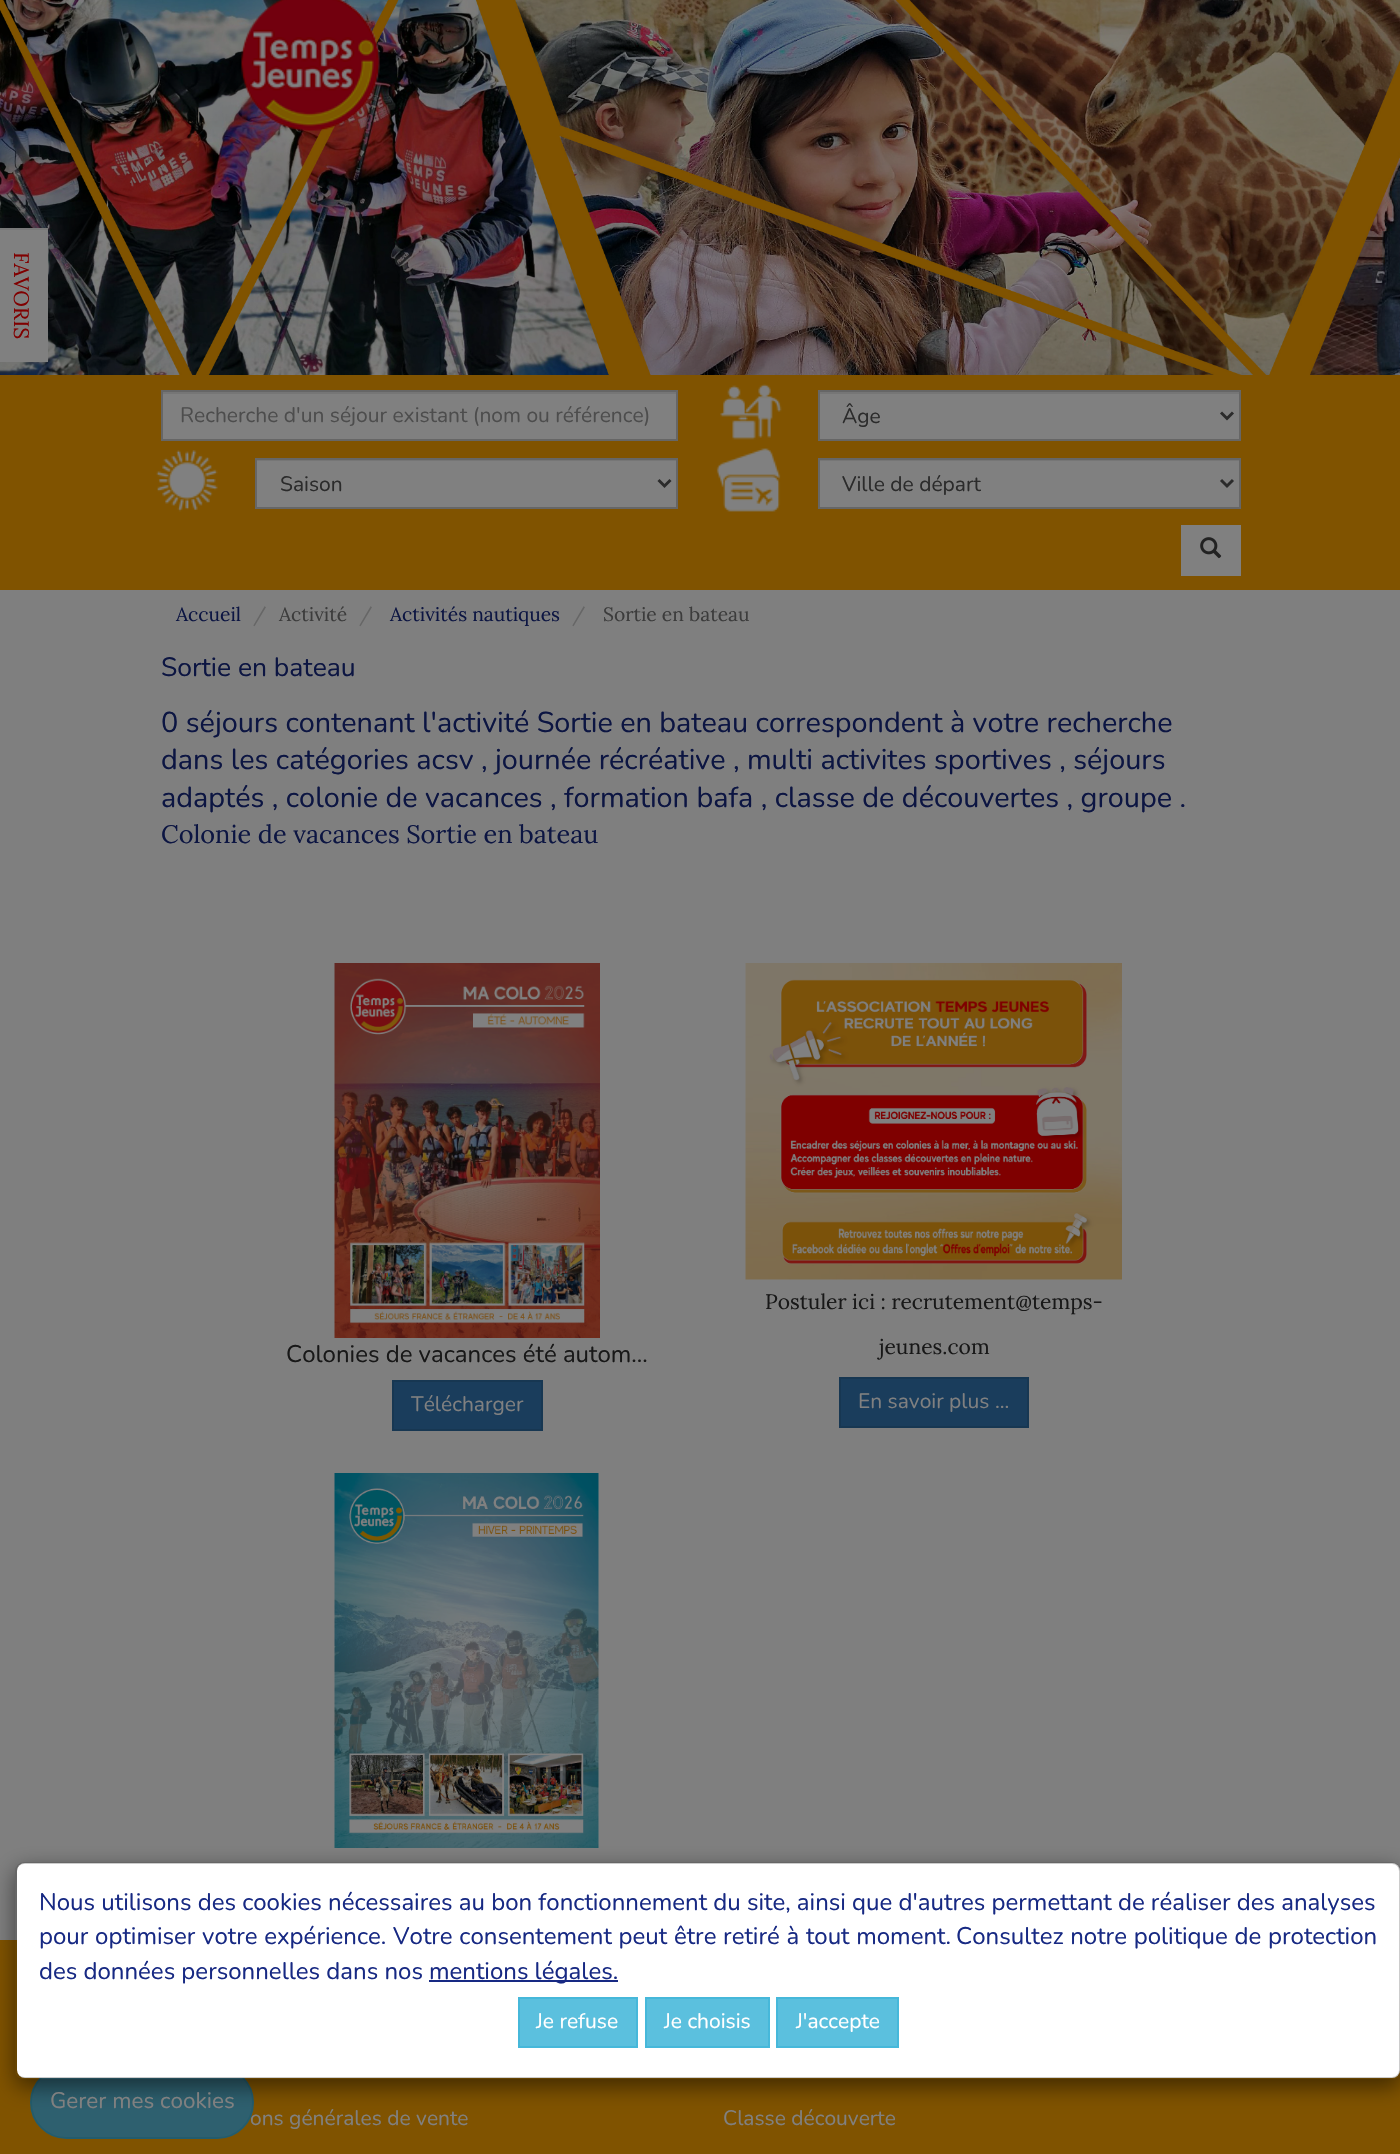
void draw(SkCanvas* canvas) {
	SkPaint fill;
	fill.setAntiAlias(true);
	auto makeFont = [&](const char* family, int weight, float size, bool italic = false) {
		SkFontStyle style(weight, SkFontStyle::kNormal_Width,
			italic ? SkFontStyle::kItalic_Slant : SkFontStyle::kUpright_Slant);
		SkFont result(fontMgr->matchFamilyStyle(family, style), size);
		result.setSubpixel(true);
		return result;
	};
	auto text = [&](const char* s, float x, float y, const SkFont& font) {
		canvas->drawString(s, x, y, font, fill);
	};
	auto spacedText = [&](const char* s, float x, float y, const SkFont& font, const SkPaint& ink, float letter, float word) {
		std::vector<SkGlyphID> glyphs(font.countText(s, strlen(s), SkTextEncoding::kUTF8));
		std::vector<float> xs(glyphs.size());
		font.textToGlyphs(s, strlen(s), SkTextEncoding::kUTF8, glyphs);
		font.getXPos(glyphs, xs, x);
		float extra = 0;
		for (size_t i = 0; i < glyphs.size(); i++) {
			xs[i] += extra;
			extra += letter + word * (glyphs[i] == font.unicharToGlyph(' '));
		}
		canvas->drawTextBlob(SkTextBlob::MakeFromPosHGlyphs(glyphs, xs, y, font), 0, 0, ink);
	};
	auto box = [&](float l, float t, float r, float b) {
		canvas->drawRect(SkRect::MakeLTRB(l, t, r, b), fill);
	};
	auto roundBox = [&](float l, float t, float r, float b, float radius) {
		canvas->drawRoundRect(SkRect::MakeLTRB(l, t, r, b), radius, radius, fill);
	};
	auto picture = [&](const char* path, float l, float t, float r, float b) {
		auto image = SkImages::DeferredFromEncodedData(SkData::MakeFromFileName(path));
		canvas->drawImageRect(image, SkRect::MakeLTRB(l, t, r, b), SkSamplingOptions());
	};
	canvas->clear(0xFF7F7F7F);
	picture("image0.png", 0, 0, 1400, 375);
	picture("image1.png", 241, 0, 380, 131);
	fill.setColor(0xFF808080);
	box(0, 230, 48, 362);
	fill.setColor(0xFF787878);
	box(0, 228, 48, 230);
	fill.setColor(0xFF805300);
	box(0, 375, 1400, 590);
	fill.setColor(0xFF808080);
	box(163, 394, 676, 439);
	fill.setColor(0xFF767676);
	box(162, 392, 677, 394);
	fill.setStyle(SkPaint::kStroke_Style);
	fill.setStrokeWidth(2);
	fill.setColor(0xFF666666);
	canvas->drawRect(SkRect::MakeLTRB(162, 391, 677, 440), fill);
	picture("image2.png", 720, 384, 782, 440);
	fill.setStyle(SkPaint::kFill_Style);
	fill.setColor(0xFF808080);
	box(820, 394, 1239, 439);
	fill.setColor(0xFF767676);
	box(819, 392, 1239, 394);
	fill.setStyle(SkPaint::kStroke_Style);
	fill.setColor(0xFF666666);
	canvas->drawRect(SkRect::MakeLTRB(819, 391, 1240, 440), fill);
	fill.setStrokeWidth(3);
	fill.setColor(0xFF2B2B2B);
	canvas->drawPath(SkPathBuilder().moveTo(1221, 412.5f).lineTo(1227, 418.5f).lineTo(1233, 412.5f).detach(), fill);
	picture("image3.png", 156, 450, 218, 512);
	fill.setStyle(SkPaint::kFill_Style);
	fill.setColor(0xFF808080);
	box(257, 461, 676, 507);
	fill.setColor(0xFF767676);
	box(257, 460, 677, 461);
	fill.setStyle(SkPaint::kStroke_Style);
	fill.setStrokeWidth(2);
	fill.setColor(0xFF666666);
	canvas->drawRect(SkRect::MakeLTRB(256, 459, 677, 508), fill);
	fill.setStrokeWidth(3);
	fill.setColor(0xFF2B2B2B);
	canvas->drawPath(SkPathBuilder().moveTo(658.5f, 480).lineTo(664.5f, 486).lineTo(670.5f, 480).detach(), fill);
	picture("image4.png", 716, 448, 781, 512);
	fill.setStyle(SkPaint::kFill_Style);
	fill.setColor(0xFF808080);
	box(820, 461, 1239, 507);
	fill.setColor(0xFF767676);
	box(819, 460, 1239, 461);
	fill.setStyle(SkPaint::kStroke_Style);
	fill.setStrokeWidth(2);
	fill.setColor(0xFF666666);
	canvas->drawRect(SkRect::MakeLTRB(819, 459, 1240, 508), fill);
	fill.setStrokeWidth(3);
	fill.setColor(0xFF2B2B2B);
	canvas->drawPath(SkPathBuilder().moveTo(1221, 480).lineTo(1227, 486).lineTo(1233, 480).detach(), fill);
	fill.setStyle(SkPaint::kFill_Style);
	fill.setColor(0xFF808080);
	box(1181, 525, 1241, 576);
	picture("image5.png", 1200, 537, 1222, 559);
	picture("image6.png", 334, 963, 600, 1338);
	fill.setColor(0xFF1A3D5C);
	canvas->drawRect(SkRect::MakeLTRB(393, 1381, 542, 1430), fill);
	fill.setStyle(SkPaint::kStroke_Style);
	fill.setStrokeWidth(2);
	fill.setColor(0xFF173752);
	canvas->drawRect(SkRect::MakeLTRB(393, 1381, 542, 1430), fill);
	picture("image7.png", 334, 1473, 599, 1848);
	picture("image8.png", 745, 963, 1122, 1280);
	fill.setStyle(SkPaint::kFill_Style);
	fill.setColor(0xFF1A3D5C);
	canvas->drawRect(SkRect::MakeLTRB(840, 1378, 1028, 1427), fill);
	fill.setStyle(SkPaint::kStroke_Style);
	fill.setColor(0xFF173752);
	canvas->drawRect(SkRect::MakeLTRB(840, 1378, 1028, 1427), fill);
	fill.setStyle(SkPaint::kFill_Style);
	fill.setColor(0xFF805300);
	box(0, 1940, 1400, 2154);
	auto font1 = makeFont("Lora", 400, 21);
	fill.setColor(0xFF800000);
	canvas->save();
	canvas->rotate(90, 14, 252);
	text("FAVORIS", 14, 252, font1);
	canvas->restore();
	auto font2 = makeFont("Nunito", 400, 21);
	fill.setColor(0xFF4D4D4D);
	text("Recherche d'un séjour existant (nom ou référence)", 180, 422, font2);
	fill.setColor(0xFF2B2B2B);
	text("Âge", 842, 423, font2);
	text("Saison", 280, 491, font2);
	text("Ville de départ", 842, 491, font2);
	auto font3 = makeFont("Lora", 400, 19.25f);
	fill.setColor(0xFF0C1542);
	text("Accueil", 176, 621, font3);
	fill.setColor(0xFF666666);
	text("/", 253, 621, font3);
	fill.setColor(0xFF3C3C3C);
	text("Activité", 279, 621, font3);
	fill.setColor(0xFF666666);
	text("/", 359, 621, font3);
	fill.setColor(0xFF0C1542);
	text("Activités nautiques", 390, 621, font3);
	fill.setColor(0xFF666666);
	text("/", 572, 621, font3);
	fill.setColor(0xFF3C3C3C);
	text("Sortie en bateau", 603, 621, font3);
	auto font4 = makeFont("Nunito", 400, 26.5f);
	fill.setColor(0xFF0C1542);
	text("Sortie en bateau", 161, 676, font4);
	auto font5 = makeFont("Nunito", 400, 28.8f);
	text("0 séjours contenant l'activité Sortie en bateau correspondent à votre recherche", 161, 732, font5);
	text("dans les catégories acsv , journée récréative , multi activites sportives , séjours", 161, 769, font5);
	text("adaptés , colonie de vacances , formation bafa , classe de découvertes , groupe .", 161, 807, font5);
	auto font6 = makeFont("Lora", 400, 25.25f);
	text("Colonie de vacances Sortie en bateau", 161, 843, font6);
	auto font7 = makeFont("Nunito", 400, 24);
	fill.setColor(0xFF181818);
	text("Colonies de vacances été autom...", 286, 1362, font7);
	fill.setColor(0xFF808080);
	text("Télécharger", 411, 1411, font2);
	fill.setColor(0xFF181818);
	text("Postuler ici : recrutement@temps-", 765, 1309, font1);
	text("jeunes.com", 879, 1354, font1);
	fill.setColor(0xFF808080);
	text("En savoir plus ...", 858, 1408, font2);
	text("ons générales de vente", 250, 2125, font2);
	fill.setColor(0xFF2E606F);
	canvas->drawRoundRect(SkRect::MakeLTRB(31, 2067, 253, 2138), 35.5f, 35.5f, fill);
	fill.setStyle(SkPaint::kStroke_Style);
	fill.setColor(0xFF235C6D);
	canvas->drawRoundRect(SkRect::MakeLTRB(31, 2067, 253, 2138), 35.5f, 35.5f, fill);
	canvas->save();
	canvas->clipPath(SkPathBuilder(SkPathFillType::kEvenOdd).moveTo(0, 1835).lineTo(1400, 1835).lineTo(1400, 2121).lineTo(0, 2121).close().moveTo(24, 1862).lineTo(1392, 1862).cubicTo(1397, 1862, 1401, 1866, 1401, 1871).lineTo(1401, 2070).cubicTo(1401, 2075, 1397, 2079, 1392, 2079).lineTo(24, 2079).cubicTo(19, 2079, 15, 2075, 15, 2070).lineTo(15, 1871).cubicTo(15, 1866, 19, 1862, 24, 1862).close().detach(), true);
	fill.setStyle(SkPaint::kFill_Style);
	fill.setColor(0x80000000);
	fill.setMaskFilter(SkMaskFilter::MakeBlur(kNormal_SkBlurStyle, 11));
	canvas->drawRoundRect(SkRect::MakeLTRB(15, 1869, 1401, 2087), 9, 9, fill);
	fill.setMaskFilter(nullptr);
	canvas->restore();
	fill.setColor(0xFFFFFFFF);
	roundBox(17, 1863, 1400, 2078, 8);
	fill.setStyle(SkPaint::kStroke_Style);
	fill.setColor(0x33000000);
	canvas->drawRoundRect(SkRect::MakeLTRB(16, 1863, 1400, 2078), 8, 8, fill);
	fill.setStyle(SkPaint::kFill_Style);
	fill.setColor(0xFF5BC0DE);
	canvas->drawRect(SkRect::MakeLTRB(777, 1998, 898, 2047), fill);
	fill.setStyle(SkPaint::kStroke_Style);
	fill.setColor(0xFF46B8DA);
	canvas->drawRect(SkRect::MakeLTRB(777, 1998, 898, 2047), fill);
	fill.setStyle(SkPaint::kFill_Style);
	fill.setColor(0xFFFFFFFF);
	text("J'accepte", 796, 2028, font2);
	fill.setColor(0xFF5BC0DE);
	canvas->drawRect(SkRect::MakeLTRB(646, 1998, 769, 2047), fill);
	fill.setStyle(SkPaint::kStroke_Style);
	fill.setColor(0xFF46B8DA);
	canvas->drawRect(SkRect::MakeLTRB(646, 1998, 769, 2047), fill);
	fill.setStyle(SkPaint::kFill_Style);
	fill.setColor(0xFFFFFFFF);
	text("Je choisis", 664, 2028, font2);
	fill.setColor(0xFF5BC0DE);
	canvas->drawRect(SkRect::MakeLTRB(519, 1998, 637, 2047), fill);
	fill.setStyle(SkPaint::kStroke_Style);
	fill.setColor(0xFF46B8DA);
	canvas->drawRect(SkRect::MakeLTRB(519, 1998, 637, 2047), fill);
	fill.setStyle(SkPaint::kFill_Style);
	fill.setColor(0xFFFFFFFF);
	text("Je refuse", 536, 2028, font2);
	fill.setColor(0xFF172983);
	box(429, 1980, 618, 1982);
	text("mentions légales.", 429, 1979, font7);
	text("des données personnelles dans nos", 39, 1979, font7);
	spacedText("Consultez notre politique de protection", 956, 1944, font7, fill, 0, 0.5f);
	spacedText("Votre consentement peut être retiré à tout moment.", 393, 1944, font7, fill, 0, 0.5f);
	spacedText("pour optimiser votre expérience.", 39, 1944, font7, fill, 0, 0.5f);
	text("Nous utilisons des cookies nécessaires au bon fonctionnement du site, ainsi que d'autres permettant de réaliser des analyses", 39, 1910, font7);
	auto font8 = makeFont("Nunito", 400, 22.5f);
	fill.setColor(0xFF808080);
	text("Gerer mes cookies", 50, 2108, font8);
	text("Classe découverte", 723, 2125, font2);
}
